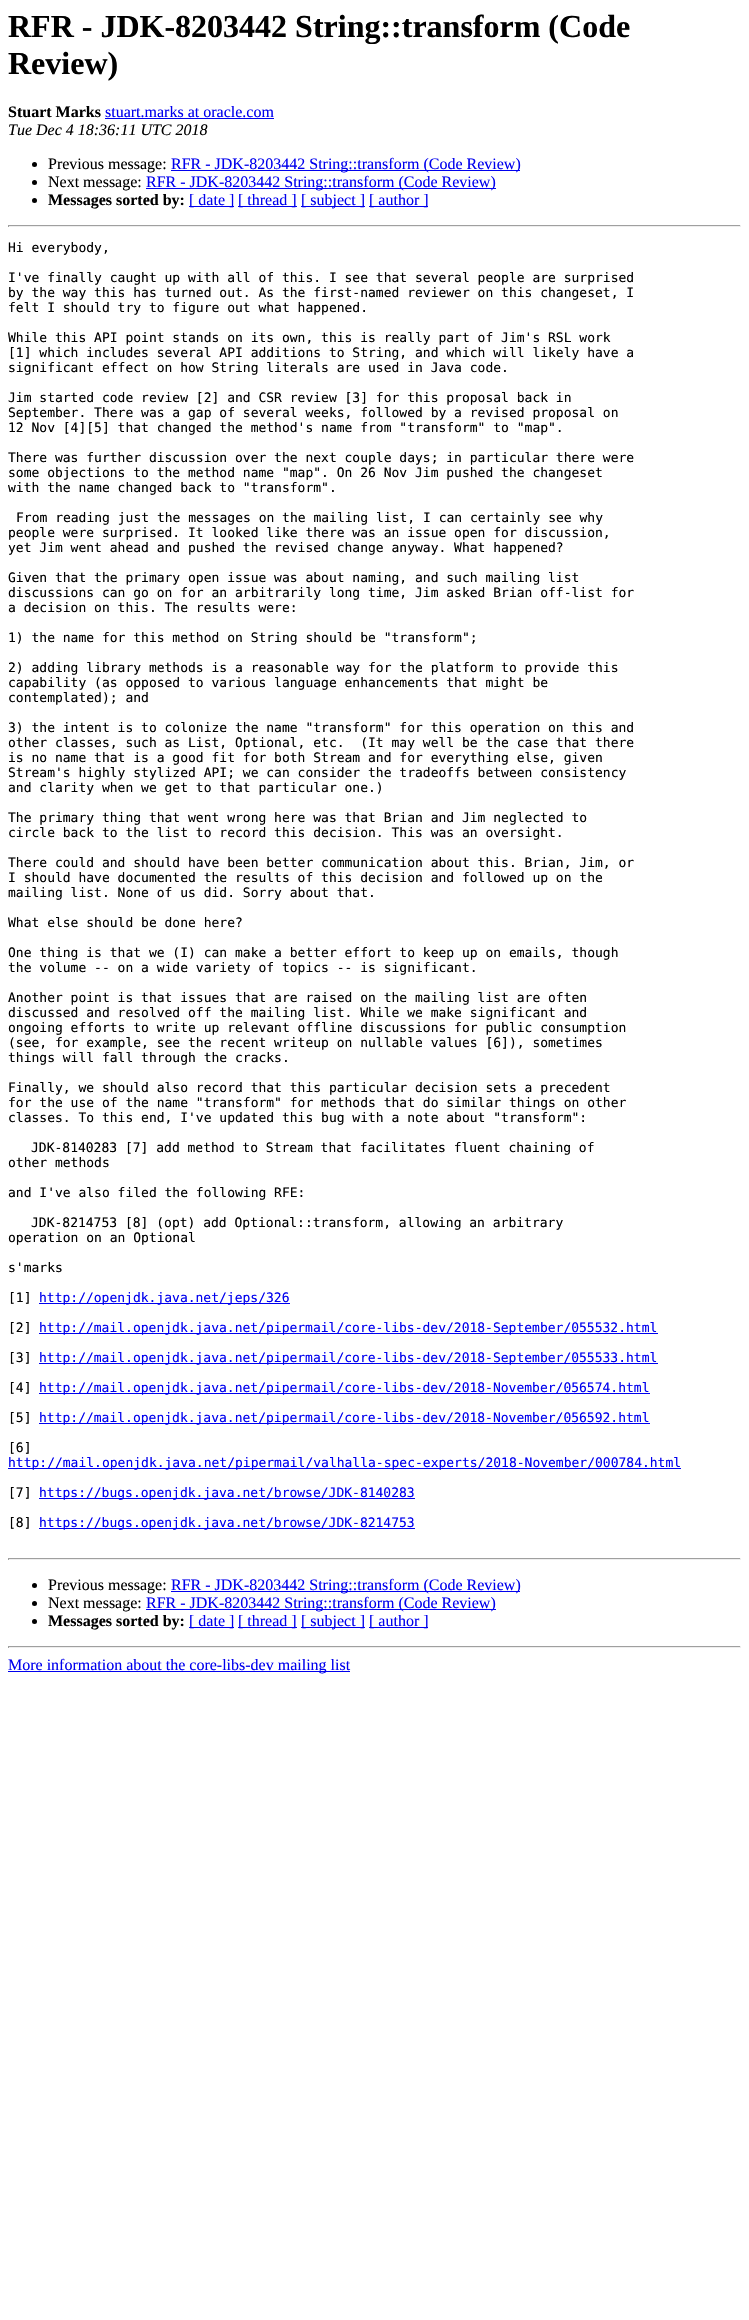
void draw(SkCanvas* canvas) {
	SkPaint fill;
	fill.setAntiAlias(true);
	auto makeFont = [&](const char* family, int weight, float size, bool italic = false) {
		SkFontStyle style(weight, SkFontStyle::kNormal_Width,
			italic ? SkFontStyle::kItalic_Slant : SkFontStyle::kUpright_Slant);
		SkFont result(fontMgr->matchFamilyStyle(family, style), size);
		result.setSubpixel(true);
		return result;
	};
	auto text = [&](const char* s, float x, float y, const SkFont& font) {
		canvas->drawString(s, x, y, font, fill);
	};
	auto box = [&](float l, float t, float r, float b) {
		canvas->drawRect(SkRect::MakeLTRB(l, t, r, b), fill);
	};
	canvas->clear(0xFFFFFFFF);
	fill.setColor(0xFF0000EE);
	box(105, 118, 274, 119);
	fill.setColor(0xFF000000);
	canvas->drawCircle(34.5f, 164.5f, 2.5f, fill);
	fill.setColor(0xFF0000EE);
	box(171, 170, 520, 171);
	fill.setColor(0xFF000000);
	canvas->drawCircle(34.5f, 182.5f, 2.5f, fill);
	fill.setColor(0xFF0000EE);
	box(146, 188, 496, 189);
	fill.setColor(0xFF000000);
	canvas->drawCircle(34.5f, 200.5f, 2.5f, fill);
	fill.setColor(0xFF0000EE);
	box(189, 206, 234, 207);
	box(238, 206, 297, 207);
	box(301, 206, 365, 207);
	box(369, 206, 428, 207);
	fill.setColor(0xFF9F9F9F);
	box(8, 225, 741, 226);
	fill.setColor(0xFFEEEEEE);
	box(740, 225, 741, 227);
	box(8, 226, 741, 227);
	fill.setColor(0xFF9F9F9F);
	box(8, 225, 9, 227);
	fill.setColor(0xFF0000EE);
	box(39, 1303, 290, 1304);
	box(39, 1333, 658, 1334);
	box(39, 1363, 658, 1364);
	box(39, 1393, 650, 1394);
	box(39, 1423, 650, 1424);
	box(8, 1468, 681, 1469);
	box(39, 1498, 415, 1499);
	box(39, 1528, 415, 1529);
	fill.setColor(0xFF9F9F9F);
	box(8, 1558, 741, 1559);
	fill.setColor(0xFFEEEEEE);
	box(740, 1558, 741, 1560);
	box(8, 1559, 741, 1560);
	fill.setColor(0xFF9F9F9F);
	box(8, 1558, 9, 1560);
	fill.setColor(0xFF000000);
	canvas->drawCircle(34.5f, 1585.5f, 2.5f, fill);
	fill.setColor(0xFF0000EE);
	box(171, 1591, 520, 1592);
	fill.setColor(0xFF000000);
	canvas->drawCircle(34.5f, 1603.5f, 2.5f, fill);
	fill.setColor(0xFF0000EE);
	box(146, 1609, 496, 1610);
	fill.setColor(0xFF000000);
	canvas->drawCircle(34.5f, 1621.5f, 2.5f, fill);
	fill.setColor(0xFF0000EE);
	box(189, 1627, 234, 1628);
	box(238, 1627, 297, 1628);
	box(301, 1627, 365, 1628);
	box(369, 1627, 428, 1628);
	fill.setColor(0xFF9F9F9F);
	box(8, 1646, 741, 1647);
	fill.setColor(0xFFEEEEEE);
	box(740, 1646, 741, 1648);
	box(8, 1647, 741, 1648);
	fill.setColor(0xFF9F9F9F);
	box(8, 1646, 9, 1648);
	fill.setColor(0xFF0000EE);
	box(8, 1671, 350, 1672);
	auto font1 = makeFont("Liberation Serif", 700, 32);
	fill.setColor(0xFF000000);
	text("RFR - JDK-8203442 String::transform (Code", 8, 37, font1);
	text("Review)", 8, 74, font1);
	auto font2 = makeFont("Liberation Serif", 700, 16);
	text("Stuart Marks", 8, 117, font2);
	auto font3 = makeFont("Liberation Serif", 400, 16);
	fill.setColor(0xFF0000EE);
	text("stuart.marks at oracle.com", 105, 117, font3);
	auto font4 = makeFont("Liberation Serif", 400, 16, true);
	fill.setColor(0xFF000000);
	text("Tue Dec 4 18:36:11 UTC 2018", 8, 135, font4);
	text("Previous message:", 48, 169, font3);
	fill.setColor(0xFF0000EE);
	text("RFR - JDK-8203442 String::transform (Code Review)", 171, 169, font3);
	fill.setColor(0xFF000000);
	text("Next message:", 48, 187, font3);
	fill.setColor(0xFF0000EE);
	text("RFR - JDK-8203442 String::transform (Code Review)", 146, 187, font3);
	fill.setColor(0xFF000000);
	text("Messages sorted by:", 48, 205, font2);
	fill.setColor(0xFF0000EE);
	text("[ date ]", 189, 205, font3);
	text("[ thread ]", 238, 205, font3);
	text("[ subject ]", 301, 205, font3);
	text("[ author ]", 369, 205, font3);
	auto font5 = makeFont("DejaVu Sans Mono", 400, 13);
	fill.setColor(0xFF000000);
	text("Hi everybody,", 8, 252, font5);
	text("I've finally caught up with all of this. I see that several people are surprised", 8, 282, font5);
	text("by the way this has turned out. As the first-named reviewer on this changeset, I", 8, 297, font5);
	text("felt I should try to figure out what happened.", 8, 312, font5);
	text("While this API point stands on its own, this is really part of Jim's RSL work", 8, 342, font5);
	text("[1] which includes several API additions to String, and which will likely have a", 8, 357, font5);
	text("significant effect on how String literals are used in Java code.", 8, 372, font5);
	text("Jim started code review [2] and CSR review [3] for this proposal back in", 8, 402, font5);
	text("September. There was a gap of several weeks, followed by a revised proposal on", 8, 417, font5);
	text("12 Nov [4][5] that changed the method's name from \"transform\" to \"map\".", 8, 432, font5);
	text("There was further discussion over the next couple days; in particular there were", 8, 462, font5);
	text("some objections to the method name \"map\". On 26 Nov Jim pushed the changeset", 8, 477, font5);
	text("with the name changed back to \"transform\".", 8, 492, font5);
	text("From reading just the messages on the mailing list, I can certainly see why", 16, 522, font5);
	text("people were surprised. It looked like there was an issue open for discussion,", 8, 537, font5);
	text("yet Jim went ahead and pushed the revised change anyway. What happened?", 8, 552, font5);
	text("Given that the primary open issue was about naming, and such mailing list", 8, 582, font5);
	text("discussions can go on for an arbitrarily long time, Jim asked Brian off-list for", 8, 597, font5);
	text("a decision on this. The results were:", 8, 612, font5);
	text("1) the name for this method on String should be \"transform\";", 8, 642, font5);
	text("2) adding library methods is a reasonable way for the platform to provide this", 8, 672, font5);
	text("capability (as opposed to various language enhancements that might be", 8, 687, font5);
	text("contemplated); and", 8, 702, font5);
	text("3) the intent is to colonize the name \"transform\" for this operation on this and", 8, 732, font5);
	text("other classes, such as List, Optional, etc.  (It may well be the case that there", 8, 747, font5);
	text("is no name that is a good fit for both Stream and for everything else, given", 8, 762, font5);
	text("Stream's highly stylized API; we can consider the tradeoffs between consistency", 8, 777, font5);
	text("and clarity when we get to that particular one.)", 8, 792, font5);
	text("The primary thing that went wrong here was that Brian and Jim neglected to", 8, 822, font5);
	text("circle back to the list to record this decision. This was an oversight.", 8, 837, font5);
	text("There could and should have been better communication about this. Brian, Jim, or", 8, 867, font5);
	text("I should have documented the results of this decision and followed up on the", 8, 882, font5);
	text("mailing list. None of us did. Sorry about that.", 8, 897, font5);
	text("What else should be done here?", 8, 927, font5);
	text("One thing is that we (I) can make a better effort to keep up on emails, though", 8, 957, font5);
	text("the volume -- on a wide variety of topics -- is significant.", 8, 972, font5);
	text("Another point is that issues that are raised on the mailing list are often", 8, 1002, font5);
	text("discussed and resolved off the mailing list. While we make significant and", 8, 1017, font5);
	text("ongoing efforts to write up relevant offline discussions for public consumption", 8, 1032, font5);
	text("(see, for example, see the recent writeup on nullable values [6]), sometimes", 8, 1047, font5);
	text("things will fall through the cracks.", 8, 1062, font5);
	text("Finally, we should also record that this particular decision sets a precedent", 8, 1092, font5);
	text("for the use of the name \"transform\" for methods that do similar things on other", 8, 1107, font5);
	text("classes. To this end, I've updated this bug with a note about \"transform\":", 8, 1122, font5);
	text("JDK-8140283 [7] add method to Stream that facilitates fluent chaining of", 31, 1152, font5);
	text("other methods", 8, 1167, font5);
	text("and I've also filed the following RFE:", 8, 1197, font5);
	text("JDK-8214753 [8] (opt) add Optional::transform, allowing an arbitrary", 31, 1227, font5);
	text("operation on an Optional", 8, 1242, font5);
	text("s'marks", 8, 1272, font5);
	text("[1]", 8, 1302, font5);
	fill.setColor(0xFF0000EE);
	text("http://openjdk.java.net/jeps/326", 39, 1302, font5);
	fill.setColor(0xFF000000);
	text("[2]", 8, 1332, font5);
	fill.setColor(0xFF0000EE);
	text("http://mail.openjdk.java.net/pipermail/core-libs-dev/2018-September/055532.html", 39, 1332, font5);
	fill.setColor(0xFF000000);
	text("[3]", 8, 1362, font5);
	fill.setColor(0xFF0000EE);
	text("http://mail.openjdk.java.net/pipermail/core-libs-dev/2018-September/055533.html", 39, 1362, font5);
	fill.setColor(0xFF000000);
	text("[4]", 8, 1392, font5);
	fill.setColor(0xFF0000EE);
	text("http://mail.openjdk.java.net/pipermail/core-libs-dev/2018-November/056574.html", 39, 1392, font5);
	fill.setColor(0xFF000000);
	text("[5]", 8, 1422, font5);
	fill.setColor(0xFF0000EE);
	text("http://mail.openjdk.java.net/pipermail/core-libs-dev/2018-November/056592.html", 39, 1422, font5);
	fill.setColor(0xFF000000);
	text("[6]", 8, 1452, font5);
	fill.setColor(0xFF0000EE);
	text("http://mail.openjdk.java.net/pipermail/valhalla-spec-experts/2018-November/000784.html", 8, 1467, font5);
	fill.setColor(0xFF000000);
	text("[7]", 8, 1497, font5);
	fill.setColor(0xFF0000EE);
	text("https://bugs.openjdk.java.net/browse/JDK-8140283", 39, 1497, font5);
	fill.setColor(0xFF000000);
	text("[8]", 8, 1527, font5);
	fill.setColor(0xFF0000EE);
	text("https://bugs.openjdk.java.net/browse/JDK-8214753", 39, 1527, font5);
	fill.setColor(0xFF000000);
	text("Previous message:", 48, 1590, font3);
	fill.setColor(0xFF0000EE);
	text("RFR - JDK-8203442 String::transform (Code Review)", 171, 1590, font3);
	fill.setColor(0xFF000000);
	text("Next message:", 48, 1608, font3);
	fill.setColor(0xFF0000EE);
	text("RFR - JDK-8203442 String::transform (Code Review)", 146, 1608, font3);
	fill.setColor(0xFF000000);
	text("Messages sorted by:", 48, 1626, font2);
	fill.setColor(0xFF0000EE);
	text("[ date ]", 189, 1626, font3);
	text("[ thread ]", 238, 1626, font3);
	text("[ subject ]", 301, 1626, font3);
	text("[ author ]", 369, 1626, font3);
	text("More information about the core-libs-dev mailing list", 8, 1670, font3);
}
